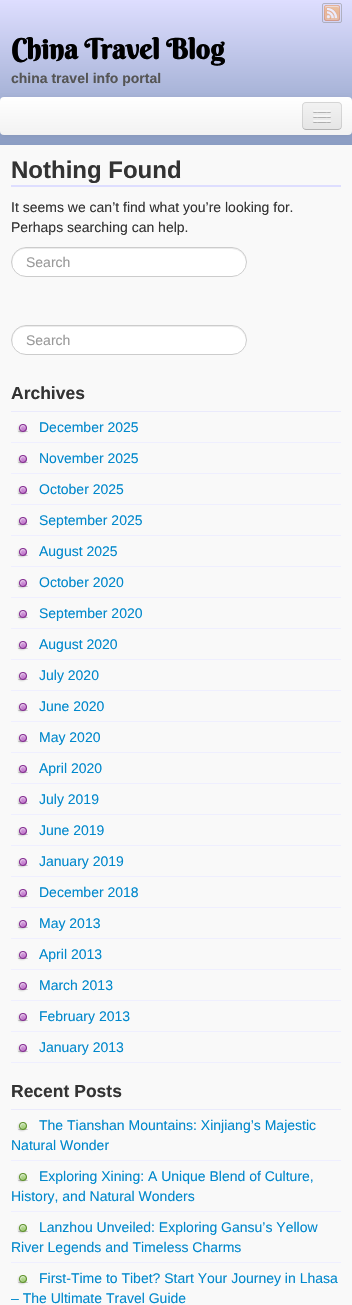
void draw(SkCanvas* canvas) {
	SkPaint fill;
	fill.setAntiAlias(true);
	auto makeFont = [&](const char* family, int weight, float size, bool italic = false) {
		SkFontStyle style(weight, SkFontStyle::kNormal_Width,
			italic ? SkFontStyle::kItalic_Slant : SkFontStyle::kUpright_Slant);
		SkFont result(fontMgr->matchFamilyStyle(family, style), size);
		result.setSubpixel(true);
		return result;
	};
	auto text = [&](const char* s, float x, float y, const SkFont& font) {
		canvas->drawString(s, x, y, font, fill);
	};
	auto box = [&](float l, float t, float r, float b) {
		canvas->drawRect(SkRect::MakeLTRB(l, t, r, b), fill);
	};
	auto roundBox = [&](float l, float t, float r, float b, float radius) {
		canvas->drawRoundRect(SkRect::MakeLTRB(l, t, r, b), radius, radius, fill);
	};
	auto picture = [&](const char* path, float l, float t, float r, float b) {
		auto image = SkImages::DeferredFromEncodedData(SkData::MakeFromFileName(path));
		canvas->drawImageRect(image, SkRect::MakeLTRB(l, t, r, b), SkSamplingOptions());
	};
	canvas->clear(0xFFFFFFFF);
	{
		const SkColor colors[] = {0xFFDEDEFF, 0xFF8B9DC3};
		const float stops[] = {0, 1};
		const SkPoint ends[] = {{176, 0}, {176, 145}};
		fill.setShader(SkGradientShader::MakeLinear(ends, colors, stops, 2, SkTileMode::kClamp));
		fill.setAlpha(255);
	}
	box(0, 0, 352, 145);
	picture("image0.png", 324, 5, 340, 21);
	fill.setStyle(SkPaint::kStroke_Style);
	fill.setStrokeWidth(1);
	fill.setShader(nullptr);
	fill.setColor(0x80888888);
	canvas->drawRoundRect(SkRect::MakeLTRB(322.5f, 3.5f, 341.5f, 22.5f), 1.5f, 1.5f, fill);
	fill.setStyle(SkPaint::kFill_Style);
	fill.setColor(0x12000000);
	fill.setMaskFilter(SkMaskFilter::MakeBlur(kNormal_SkBlurStyle, 2));
	canvas->drawRoundRect(SkRect::MakeLTRB(0, 98, 352, 136), 4, 4, fill);
	fill.setMaskFilter(nullptr);
	{
		const SkColor colors[] = {0xFFFFFFFF, 0xFFF2F2F2};
		const float stops[] = {0, 1};
		const SkPoint ends[] = {{176, 97}, {176, 135}};
		fill.setShader(SkGradientShader::MakeLinear(ends, colors, stops, 2, SkTileMode::kClamp));
		fill.setAlpha(255);
	}
	roundBox(0, 97, 352, 135, 4);
	fill.setShader(nullptr);
	fill.setColor(0xFFEDEDED);
	roundBox(302, 102, 342, 130, 4);
	canvas->save();
	canvas->clipPath(SkPathBuilder().moveTo(306, 102).lineTo(338, 102).cubicTo(340, 102, 342, 104, 342, 106).lineTo(342, 126).cubicTo(342, 128, 340, 130, 338, 130).lineTo(306, 130).cubicTo(304, 130, 302, 128, 302, 126).lineTo(302, 106).cubicTo(302, 104, 304, 102, 306, 102).close().detach(), true);
	{
		const SkColor colors[] = {0xFFF2F2F2, 0xFFE5E5E5};
		const float stops[] = {0, 1};
		const SkPoint ends[] = {{322, 103}, {322, 129}};
		fill.setShader(SkGradientShader::MakeLinear(ends, colors, stops, 2, SkTileMode::kClamp));
		fill.setAlpha(255);
	}
	box(302, 103, 342, 129);
	canvas->restore();
	fill.setStyle(SkPaint::kStroke_Style);
	fill.setShader(nullptr);
	fill.setColor(0xFFB2B2B2);
	canvas->drawPath(SkPathBuilder().moveTo(340.5f, 128.5f).cubicTo(340, 129, 339, 129.5f, 338, 129.5f).lineTo(306, 129.5f).cubicTo(305, 129.5f, 304, 129, 303.5f, 128.5f).detach(), fill);
	fill.setColor(0x1A000000);
	canvas->drawPath(SkPathBuilder().moveTo(303.5f, 128.5f).cubicTo(303, 128, 302.5f, 127, 302.5f, 126).lineTo(302.5f, 106).cubicTo(302.5f, 105, 303, 104, 303.5f, 103.5f).cubicTo(304, 103, 305, 102.5f, 306, 102.5f).lineTo(338, 102.5f).cubicTo(339, 102.5f, 340, 103, 340.5f, 103.5f).cubicTo(341, 104, 341.5f, 105, 341.5f, 106).lineTo(341.5f, 126).cubicTo(341.5f, 127, 341, 128, 340.5f, 128.5f).detach(), fill);
	fill.setStyle(SkPaint::kFill_Style);
	fill.setColor(0xFFB2B2B2);
	canvas->drawPath(SkPathBuilder().moveTo(313, 111.5f).cubicTo(312, 113.5f, 316.5f, 113, 316.5f, 113).lineTo(327.5f, 113).cubicTo(327.5f, 113, 332, 113.5f, 331, 111.5f).cubicTo(330, 112.5f, 323.5f, 112, 322, 112).cubicTo(320.5f, 112, 314, 112.5f, 313, 111.5f).close().detach(), fill);
	fill.setColor(0xFFF5F5F5);
	roundBox(313, 110, 331, 112, 1);
	fill.setColor(0xFFB0B0B0);
	canvas->drawPath(SkPathBuilder().moveTo(313, 116.5f).cubicTo(312, 118.5f, 316.5f, 118, 316.5f, 118).lineTo(327.5f, 118).cubicTo(327.5f, 118, 332, 118.5f, 331, 116.5f).cubicTo(330, 117.5f, 323.5f, 117, 322, 117).cubicTo(320.5f, 117, 314, 117.5f, 313, 116.5f).close().detach(), fill);
	fill.setColor(0xFFF5F5F5);
	roundBox(313, 115, 331, 117, 1);
	fill.setColor(0xFFAEAEAE);
	canvas->drawPath(SkPathBuilder().moveTo(313, 121.5f).cubicTo(312, 123.5f, 316.5f, 123, 316.5f, 123).lineTo(327.5f, 123).cubicTo(327.5f, 123, 332, 123.5f, 331, 121.5f).cubicTo(330, 122.5f, 323.5f, 122, 322, 122).cubicTo(320.5f, 122, 314, 122.5f, 313, 121.5f).close().detach(), fill);
	fill.setColor(0xFFF5F5F5);
	roundBox(313, 120, 331, 122, 1);
	fill.setColor(0xFFF9F9F9);
	box(0, 145, 352, 1305);
	fill.setColor(0xFFDEDEFF);
	box(11, 185, 341, 187);
	fill.setColor(0xFFFFFFFF);
	roundBox(11, 247, 247, 277, 15);
	fill.setColor(0xFFECECEC);
	canvas->drawPath(SkPathBuilder().moveTo(26, 249).lineTo(232, 249).lineTo(237, 250).cubicTo(242, 252, 245, 257, 246, 262).cubicTo(246, 254, 240, 248, 232, 248).lineTo(26, 248).cubicTo(18, 248, 12, 254, 12, 262).cubicTo(12, 264, 12, 266, 13, 268).cubicTo(11, 259, 15, 249, 26, 249).close().detach(), fill);
	fill.setStyle(SkPaint::kStroke_Style);
	fill.setColor(0xFFCCCCCC);
	canvas->drawRoundRect(SkRect::MakeLTRB(11.5f, 247.5f, 246.5f, 276.5f), 14.5f, 14.5f, fill);
	fill.setStyle(SkPaint::kFill_Style);
	fill.setColor(0xFFFFFFFF);
	roundBox(11, 325, 247, 355, 15);
	fill.setColor(0xFFECECEC);
	canvas->drawPath(SkPathBuilder().moveTo(26, 327).lineTo(232, 327).lineTo(237, 328).cubicTo(242, 330, 245, 335, 246, 340).cubicTo(246, 332, 240, 326, 232, 326).lineTo(26, 326).cubicTo(18, 326, 12, 332, 12, 340).cubicTo(12, 342, 12, 344, 13, 346).cubicTo(11, 337, 15, 327, 26, 327).close().detach(), fill);
	fill.setStyle(SkPaint::kStroke_Style);
	fill.setColor(0xFFCCCCCC);
	canvas->drawRoundRect(SkRect::MakeLTRB(11.5f, 325.5f, 246.5f, 354.5f), 14.5f, 14.5f, fill);
	fill.setStyle(SkPaint::kFill_Style);
	fill.setColor(0xFFEAEAFC);
	box(11, 411, 341, 412);
	fill.setColor(0xFFEFEFFF);
	box(11, 442, 341, 443);
	picture("image1.png", 17, 424, 28, 434);
	box(11, 473, 341, 474);
	picture("image1.png", 17, 455, 28, 465);
	box(11, 504, 341, 505);
	picture("image1.png", 17, 486, 28, 496);
	box(11, 535, 341, 536);
	picture("image1.png", 17, 517, 28, 527);
	box(11, 566, 341, 567);
	picture("image1.png", 17, 548, 28, 558);
	box(11, 597, 341, 598);
	picture("image1.png", 17, 579, 28, 589);
	box(11, 628, 341, 629);
	picture("image1.png", 17, 610, 28, 620);
	box(11, 659, 341, 660);
	picture("image1.png", 17, 641, 28, 651);
	box(11, 690, 341, 691);
	picture("image1.png", 17, 672, 28, 682);
	box(11, 721, 341, 722);
	picture("image1.png", 17, 703, 28, 713);
	box(11, 752, 341, 753);
	picture("image1.png", 17, 734, 28, 744);
	box(11, 783, 341, 784);
	picture("image1.png", 17, 765, 28, 775);
	box(11, 814, 341, 815);
	picture("image1.png", 17, 796, 28, 806);
	box(11, 845, 341, 846);
	picture("image1.png", 17, 827, 28, 837);
	box(11, 876, 341, 877);
	picture("image1.png", 17, 858, 28, 868);
	box(11, 907, 341, 908);
	picture("image1.png", 17, 889, 28, 899);
	box(11, 938, 341, 939);
	picture("image1.png", 17, 920, 28, 930);
	box(11, 969, 341, 970);
	picture("image1.png", 17, 951, 28, 961);
	box(11, 1000, 341, 1001);
	picture("image1.png", 17, 982, 28, 992);
	box(11, 1031, 341, 1032);
	picture("image1.png", 17, 1013, 28, 1023);
	box(11, 1062, 341, 1063);
	picture("image1.png", 17, 1044, 28, 1054);
	fill.setColor(0xFFEAEAFC);
	box(11, 1109, 341, 1110);
	fill.setColor(0xFFEFEFFF);
	box(11, 1160, 341, 1161);
	picture("image2.png", 17, 1122, 28, 1132);
	box(11, 1211, 341, 1212);
	picture("image2.png", 17, 1173, 28, 1183);
	box(11, 1262, 341, 1263);
	picture("image2.png", 17, 1224, 28, 1234);
	picture("image2.png", 17, 1275, 28, 1285);
	auto font1 = makeFont("Berkshire Swash", 700, 28);
	fill.setColor(0xFF000000);
	text("China Travel Blog", 11, 59, font1);
	auto font2 = makeFont("Liberation Sans", 700, 14);
	fill.setColor(0xFF555555);
	text("china travel info portal", 11, 83, font2);
	auto font3 = makeFont("Liberation Sans", 700, 24);
	fill.setColor(0xFF333333);
	text("Nothing Found", 11, 178, font3);
	auto font4 = makeFont("Liberation Sans", 400, 14);
	text("It seems we can’t find what you’re looking for.", 11, 212, font4);
	text("Perhaps searching can help.", 11, 232, font4);
	fill.setColor(0xFF999999);
	text("Search", 26, 267, font4);
	text("Search", 26, 345, font4);
	auto font5 = makeFont("Liberation Sans", 700, 17.5f);
	fill.setColor(0xFF333333);
	text("Archives", 11, 399, font5);
	fill.setColor(0xFF0088CC);
	text("December 2025", 39, 432, font4);
	text("November 2025", 39, 463, font4);
	text("October 2025", 39, 494, font4);
	text("September 2025", 39, 525, font4);
	text("August 2025", 39, 556, font4);
	text("October 2020", 39, 587, font4);
	text("September 2020", 39, 618, font4);
	text("August 2020", 39, 649, font4);
	text("July 2020", 39, 680, font4);
	text("June 2020", 39, 711, font4);
	text("May 2020", 39, 742, font4);
	text("April 2020", 39, 773, font4);
	text("July 2019", 39, 804, font4);
	text("June 2019", 39, 835, font4);
	text("January 2019", 39, 866, font4);
	text("December 2018", 39, 897, font4);
	text("May 2013", 39, 928, font4);
	text("April 2013", 39, 959, font4);
	text("March 2013", 39, 990, font4);
	text("February 2013", 39, 1021, font4);
	text("January 2013", 39, 1052, font4);
	fill.setColor(0xFF333333);
	text("Recent Posts", 11, 1097, font5);
	fill.setColor(0xFF0088CC);
	text("The Tianshan Mountains: Xinjiang’s Majestic", 39, 1130, font4);
	text("Natural Wonder", 11, 1150, font4);
	text("Exploring Xining: A Unique Blend of Culture,", 39, 1181, font4);
	text("History, and Natural Wonders", 11, 1201, font4);
	text("Lanzhou Unveiled: Exploring Gansu’s Yellow", 39, 1232, font4);
	text("River Legends and Timeless Charms", 11, 1252, font4);
	text("First-Time to Tibet? Start Your Journey in Lhasa", 39, 1283, font4);
	text("– The Ultimate Travel Guide", 11, 1303, font4);
}
